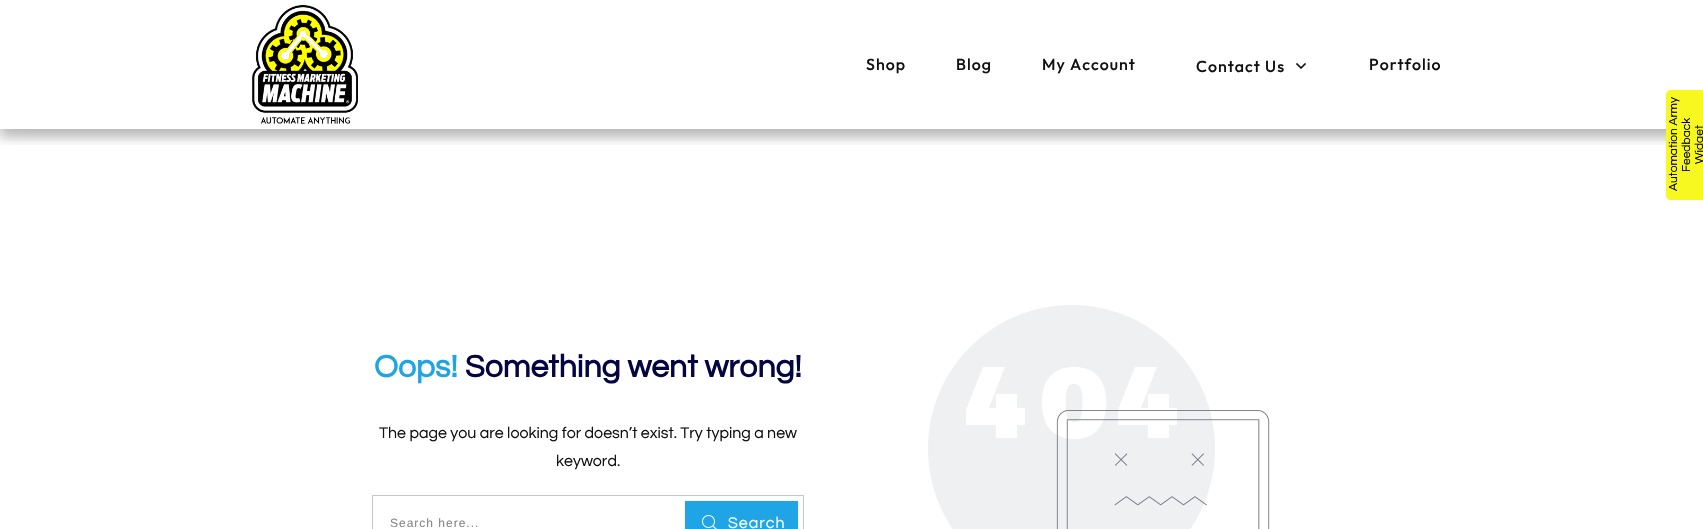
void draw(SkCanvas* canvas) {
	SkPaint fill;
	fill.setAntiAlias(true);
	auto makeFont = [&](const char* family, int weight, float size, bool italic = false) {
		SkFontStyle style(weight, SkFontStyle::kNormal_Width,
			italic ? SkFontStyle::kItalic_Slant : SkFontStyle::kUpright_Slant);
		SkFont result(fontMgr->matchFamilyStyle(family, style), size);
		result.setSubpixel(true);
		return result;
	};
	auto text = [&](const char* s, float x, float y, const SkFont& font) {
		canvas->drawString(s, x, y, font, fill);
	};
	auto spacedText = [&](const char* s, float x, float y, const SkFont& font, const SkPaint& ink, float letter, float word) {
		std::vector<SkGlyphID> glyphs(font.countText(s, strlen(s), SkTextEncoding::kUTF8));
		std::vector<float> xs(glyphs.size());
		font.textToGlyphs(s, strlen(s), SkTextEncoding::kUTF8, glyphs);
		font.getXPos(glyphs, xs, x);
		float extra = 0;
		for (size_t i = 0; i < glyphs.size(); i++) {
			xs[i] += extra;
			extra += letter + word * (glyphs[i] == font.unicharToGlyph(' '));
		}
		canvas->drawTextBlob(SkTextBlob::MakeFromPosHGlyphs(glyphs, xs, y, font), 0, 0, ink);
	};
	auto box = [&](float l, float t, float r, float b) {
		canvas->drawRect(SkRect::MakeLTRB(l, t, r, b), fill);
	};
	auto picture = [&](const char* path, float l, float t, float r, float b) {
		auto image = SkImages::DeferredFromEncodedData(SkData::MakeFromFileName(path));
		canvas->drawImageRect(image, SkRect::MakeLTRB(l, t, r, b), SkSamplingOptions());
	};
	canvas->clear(0xFFFFFFFF);
	canvas->save();
	canvas->clipRect(SkRect::MakeLTRB(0, 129, 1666, 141));
	fill.setColor(0x14000000);
	fill.setMaskFilter(SkMaskFilter::MakeBlur(kNormal_SkBlurStyle, 15));
	canvas->drawRect(SkRect::MakeLTRB(0, 2, 1703, 131), fill);
	fill.setMaskFilter(nullptr);
	canvas->restore();
	canvas->save();
	canvas->clipRect(SkRect::MakeLTRB(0, 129, 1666, 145));
	fill.setColor(0x40000000);
	fill.setMaskFilter(SkMaskFilter::MakeBlur(kNormal_SkBlurStyle, 6));
	canvas->drawRect(SkRect::MakeLTRB(0, 8, 1703, 137), fill);
	fill.setMaskFilter(nullptr);
	canvas->restore();
	picture("image0.png", 252, 5, 358, 124);
	picture("image1.png", 1296, 63, 1306, 69);
	fill.setStyle(SkPaint::kStroke_Style);
	fill.setStrokeWidth(1);
	fill.setColor(0xFFC7C7C7);
	canvas->drawRect(SkRect::MakeLTRB(372.5f, 495.5f, 803.5f, 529.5f), fill);
	fill.setStyle(SkPaint::kFill_Style);
	fill.setColor(0xFF1FA5E6);
	box(685, 501, 798, 529);
	picture("image2.png", 702, 515, 717, 529);
	picture("image3.png", 928, 305, 1270, 529);
	fill.setColor(0xFFF8F821);
	canvas->drawPath(SkPathBuilder().moveTo(1671, 90).lineTo(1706, 90).lineTo(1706, 200).lineTo(1671, 200).cubicTo(1668, 200, 1666, 198, 1666, 195).lineTo(1666, 95).cubicTo(1666, 92, 1668, 90, 1671, 90).close().detach(), fill);
	auto font1 = makeFont("Outfit", 500, 16);
	fill.setColor(0xFF111111);
	spacedText("Shop", 866, 70, font1, fill, 1, 0);
	spacedText("Blog", 956, 70, font1, fill, 1, 0);
	spacedText("My Account", 1042, 70, font1, fill, 1, 0);
	spacedText("Contact Us", 1196, 72, font1, fill, 1, 0);
	spacedText("Portfolio", 1369, 70, font1, fill, 1, 0);
	auto font2 = makeFont("Questrial", 700, 32);
	fill.setColor(0xFF1FA5E6);
	text("Oops!", 374, 377, font2);
	fill.setColor(0xFF050541);
	text("Something went wrong!", 465, 377, font2);
	auto font3 = makeFont("Questrial", 400, 16);
	fill.setColor(0xFF111111);
	text("The page you are looking for doesn’t exist. Try typing a new", 379, 438, font3);
	text("keyword.", 556, 466, font3);
	auto font4 = makeFont("Liberation Sans", 400, 12);
	fill.setColor(0xFF858585);
	spacedText("Search here...", 390, 527, font4, fill, 1, 0);
	fill.setColor(0xFFFFFFFF);
	spacedText("Search", 728, 528, font3, fill, 1, 0);
	auto font5 = makeFont("Questrial", 400, 12);
	fill.setColor(0xFF000000);
	canvas->save();
	canvas->rotate(-90, 1677, 191);
	text("Automation Army", 1677, 191, font5);
	canvas->restore();
	canvas->save();
	canvas->rotate(-90, 1690, 172);
	text("Feedback", 1690, 172, font5);
	canvas->restore();
	canvas->save();
	canvas->rotate(-90, 1703, 164);
	text("Widget", 1703, 164, font5);
	canvas->restore();
}
